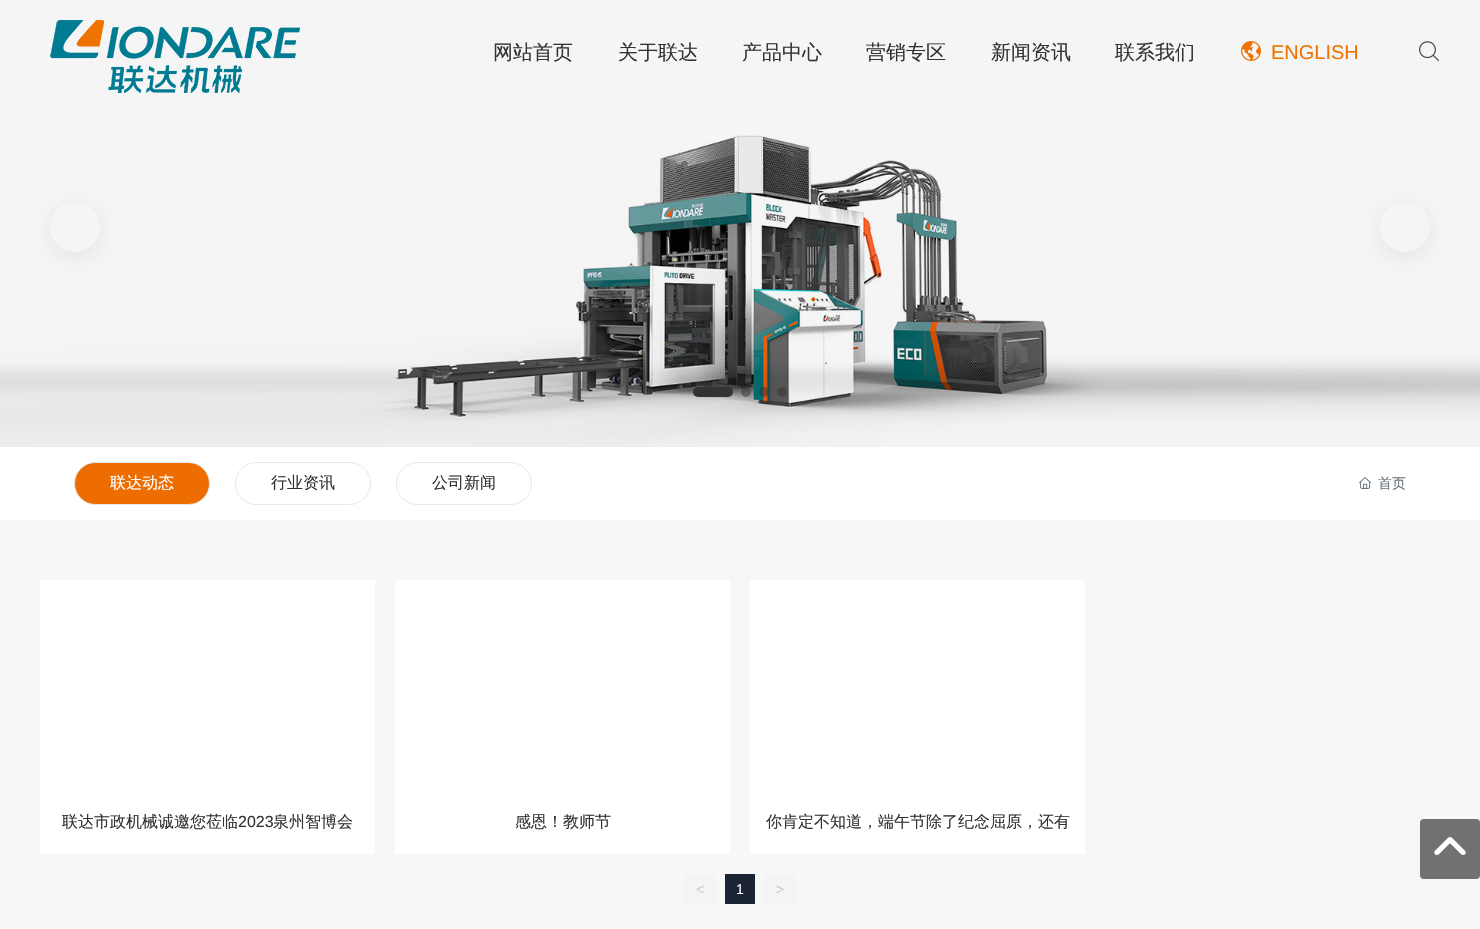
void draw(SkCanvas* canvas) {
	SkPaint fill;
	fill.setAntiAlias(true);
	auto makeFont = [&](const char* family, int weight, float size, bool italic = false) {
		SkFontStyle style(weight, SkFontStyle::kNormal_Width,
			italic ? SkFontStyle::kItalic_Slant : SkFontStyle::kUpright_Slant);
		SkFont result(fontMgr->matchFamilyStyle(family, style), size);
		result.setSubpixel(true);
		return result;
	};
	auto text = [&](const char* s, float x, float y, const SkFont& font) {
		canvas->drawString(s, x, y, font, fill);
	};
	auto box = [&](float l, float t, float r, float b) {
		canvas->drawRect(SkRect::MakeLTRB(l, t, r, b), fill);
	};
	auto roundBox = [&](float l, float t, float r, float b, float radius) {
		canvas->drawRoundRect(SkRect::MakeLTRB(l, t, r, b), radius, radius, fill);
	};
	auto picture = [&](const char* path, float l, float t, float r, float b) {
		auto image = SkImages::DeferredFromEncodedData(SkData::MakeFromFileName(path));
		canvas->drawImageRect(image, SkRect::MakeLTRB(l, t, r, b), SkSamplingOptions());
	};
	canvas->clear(0xFFFFFFFF);
	picture("image0.png", 0, 0, 1480, 447);
	canvas->save();
	canvas->clipPath(SkPathBuilder(SkPathFillType::kEvenOdd).moveTo(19, 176).lineTo(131, 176).lineTo(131, 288).lineTo(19, 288).close().moveTo(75, 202).cubicTo(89, 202, 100, 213, 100, 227).cubicTo(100, 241, 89, 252, 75, 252).cubicTo(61, 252, 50, 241, 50, 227).cubicTo(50, 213, 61, 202, 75, 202).close().detach(), true);
	fill.setColor(0x29808080);
	fill.setMaskFilter(SkMaskFilter::MakeBlur(kNormal_SkBlurStyle, 10));
	canvas->drawRoundRect(SkRect::MakeLTRB(50, 207, 100, 257), 25, 25, fill);
	fill.setMaskFilter(nullptr);
	canvas->restore();
	canvas->save();
	canvas->clipPath(SkPathBuilder(SkPathFillType::kEvenOdd).moveTo(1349, 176).lineTo(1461, 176).lineTo(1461, 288).lineTo(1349, 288).close().moveTo(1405, 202).cubicTo(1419, 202, 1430, 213, 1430, 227).cubicTo(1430, 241, 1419, 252, 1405, 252).cubicTo(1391, 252, 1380, 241, 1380, 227).cubicTo(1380, 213, 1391, 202, 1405, 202).close().detach(), true);
	fill.setMaskFilter(SkMaskFilter::MakeBlur(kNormal_SkBlurStyle, 10));
	canvas->drawRoundRect(SkRect::MakeLTRB(1380, 207, 1430, 257), 25, 25, fill);
	fill.setMaskFilter(nullptr);
	canvas->restore();
	fill.setColor(0xFF333333);
	roundBox(693, 387, 733, 397, 5);
	fill.setColor(0x80333333);
	canvas->drawCircle(746, 392, 5, fill);
	canvas->drawCircle(764, 392, 5, fill);
	canvas->drawCircle(782, 392, 5, fill);
	picture("image1.png", 50, 20, 300, 93);
	picture("image2.png", 1241, 41, 1261, 61);
	picture("image3.png", 1419, 41, 1439, 61);
	fill.setColor(0xFFED6D00);
	canvas->drawRoundRect(SkRect::MakeLTRB(74.5f, 462.5f, 209.5f, 504.5f), 21, 21, fill);
	fill.setStyle(SkPaint::kStroke_Style);
	fill.setStrokeWidth(1);
	fill.setColor(0xFFEAE7E7);
	canvas->drawRoundRect(SkRect::MakeLTRB(74.5f, 462.5f, 209.5f, 504.5f), 21, 21, fill);
	canvas->drawRoundRect(SkRect::MakeLTRB(235.5f, 462.5f, 370.5f, 504.5f), 21, 21, fill);
	canvas->drawRoundRect(SkRect::MakeLTRB(396.5f, 462.5f, 531.5f, 504.5f), 21, 21, fill);
	picture("image4.png", 1359, 477, 1371, 489);
	fill.setStyle(SkPaint::kFill_Style);
	fill.setColor(0xFFF7F7F7);
	box(0, 520, 1480, 929);
	fill.setColor(0xFFFFFFFF);
	box(40, 580, 375, 854);
	box(395, 580, 730, 854);
	box(750, 580, 1085, 854);
	fill.setColor(0xFFF4F4F4);
	box(685, 874, 715, 904);
	fill.setColor(0xFF1B2435);
	box(725, 874, 755, 904);
	fill.setColor(0xFFF4F4F4);
	box(765, 874, 795, 904);
	fill.setColor(0xFF717171);
	roundBox(1420, 819, 1480, 879, 4);
	picture("image5.png", 1434, 837, 1466, 855);
	auto font1 = makeFont("WenQuanYi Zen Hei", 500, 20);
	fill.setColor(0xFF333333);
	text("网站首页", 493, 59, font1);
	text("关于联达", 618, 59, font1);
	text("产品中心", 742, 59, font1);
	text("营销专区", 866, 59, font1);
	text("新闻资讯", 991, 59, font1);
	text("联系我们", 1115, 59, font1);
	auto font2 = makeFont("Liberation Sans", 400, 20);
	fill.setColor(0xFFEE7300);
	text("ENGLISH", 1271, 59, font2);
	auto font3 = makeFont("WenQuanYi Zen Hei", 500, 16);
	fill.setColor(0xFFFFFFFF);
	text("联达动态", 110, 488, font3);
	fill.setColor(0xFF333333);
	text("行业资讯", 271, 488, font3);
	text("公司新闻", 432, 488, font3);
	auto font4 = makeFont("WenQuanYi Zen Hei", 500, 14);
	fill.setColor(0xFF6C757D);
	text("首页", 1378, 488, font4);
	fill.setColor(0xFF333333);
	text("联达市政机械诚邀您莅临", 62, 827, font3);
	auto font5 = makeFont("Liberation Sans", 400, 16);
	text("2023", 238, 827, font5);
	text("泉州智博会", 273, 827, font3);
	text("感恩！教师节", 515, 827, font3);
	text("你肯定不知道，端午节除了纪念屈原，还有", 766, 827, font3);
	auto font6 = makeFont("Liberation Sans", 400, 14);
	fill.setColor(0xFFCCCCCC);
	text("<", 696, 894, font6);
	fill.setColor(0xFFFFFFFF);
	text("1", 736, 894, font6);
	fill.setColor(0xFFCCCCCC);
	text(">", 776, 894, font6);
}
